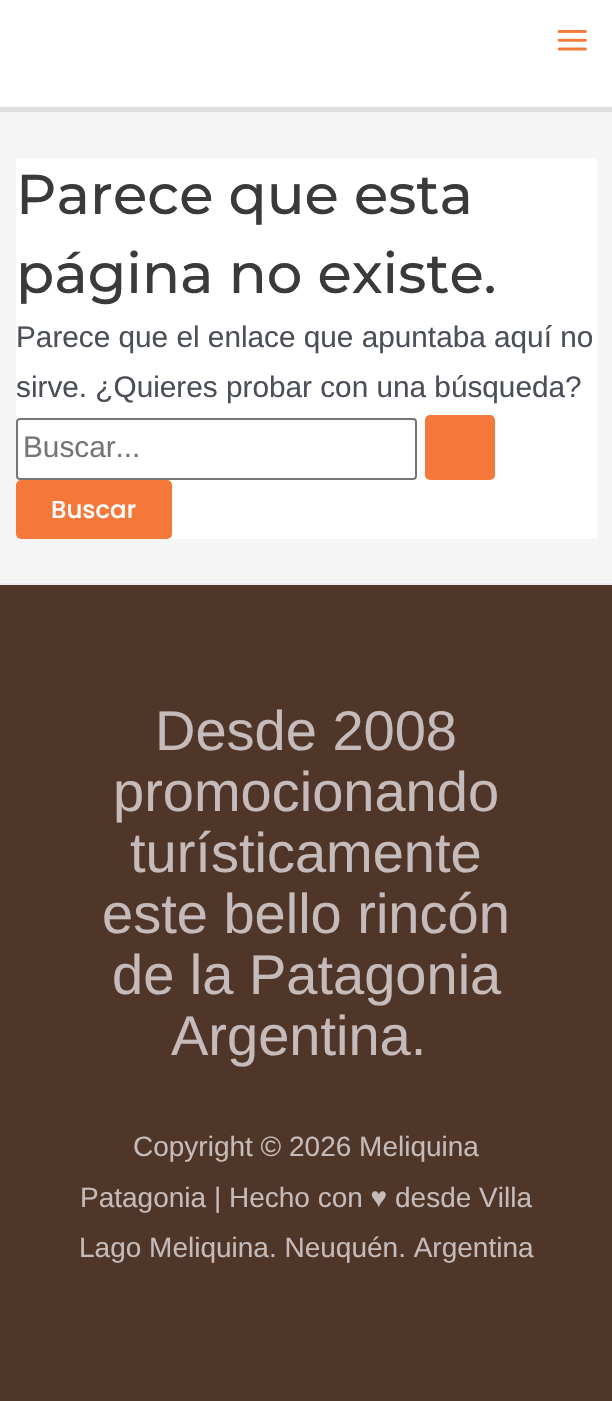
void draw(SkCanvas* canvas) {
	SkPaint fill;
	fill.setAntiAlias(true);
	auto makeFont = [&](const char* family, int weight, float size, bool italic = false) {
		SkFontStyle style(weight, SkFontStyle::kNormal_Width,
			italic ? SkFontStyle::kItalic_Slant : SkFontStyle::kUpright_Slant);
		SkFont result(fontMgr->matchFamilyStyle(family, style), size);
		result.setSubpixel(true);
		return result;
	};
	auto text = [&](const char* s, float x, float y, const SkFont& font) {
		canvas->drawString(s, x, y, font, fill);
	};
	auto box = [&](float l, float t, float r, float b) {
		canvas->drawRect(SkRect::MakeLTRB(l, t, r, b), fill);
	};
	auto roundBox = [&](float l, float t, float r, float b, float radius) {
		canvas->drawRoundRect(SkRect::MakeLTRB(l, t, r, b), radius, radius, fill);
	};
	auto picture = [&](const char* path, float l, float t, float r, float b) {
		auto image = SkImages::DeferredFromEncodedData(SkData::MakeFromFileName(path));
		canvas->drawImageRect(image, SkRect::MakeLTRB(l, t, r, b), SkSamplingOptions());
	};
	canvas->clear(0xFFF5F5F5);
	fill.setColor(0xFFFFFFFF);
	box(0, 0, 612, 107);
	fill.setColor(0xFFDDDDDD);
	box(0, 107, 612, 112);
	picture("image0.png", 557, 30, 587, 51);
	fill.setColor(0xFFFFFFFF);
	box(16, 158, 597, 539);
	fill.setStyle(SkPaint::kStroke_Style);
	fill.setStrokeWidth(2);
	fill.setColor(0xFF767676);
	canvas->drawRoundRect(SkRect::MakeLTRB(17, 419, 416, 479), 3, 3, fill);
	fill.setStyle(SkPaint::kFill_Style);
	fill.setColor(0xFFF47839);
	roundBox(425, 415, 495, 480, 5);
	roundBox(16, 480, 172, 539, 5);
	fill.setColor(0xFF503629);
	box(0, 585, 612, 1401);
	fill.setColor(0xFFEBEAF6);
	box(0, 583, 612, 585);
	auto font1 = makeFont("Montserrat", 500, 56);
	fill.setColor(0xFF3A3A3A);
	text("Parece que esta", 16, 214, font1);
	text("página no existe.", 16, 293, font1);
	auto font2 = makeFont("Liberation Sans", 400, 29.75f);
	fill.setColor(0xFF4B4F58);
	text("Parece que el enlace que apuntaba aquí no", 16, 347, font2);
	text("sirve. ¿Quieres probar con una búsqueda?", 16, 397, font2);
	fill.setColor(0xFF757575);
	text("Buscar...", 23, 457, font2);
	auto font3 = makeFont("Poppins", 500, 24.5f);
	fill.setColor(0xFFFFFFFF);
	text("Buscar", 51, 518, font3);
	auto font4 = makeFont("Liberation Sans", 400, 56);
	fill.setColor(0xFFC5BBBB);
	text("Desde 2008", 155, 750, font4);
	text("promocionando", 113, 811, font4);
	text("turísticamente", 130, 872, font4);
	text("este bello rincón", 102, 933, font4);
	text("de la Patagonia", 112, 994, font4);
	text("Argentina.", 171, 1055, font4);
	auto font5 = makeFont("Liberation Sans", 400, 28);
	text("Copyright © 2026 Meliquina", 133, 1156, font5);
	text("Patagonia | Hecho con ♥ desde Villa", 80, 1207, font5);
	text("Lago Meliquina. Neuquén. Argentina", 79, 1257, font5);
}
